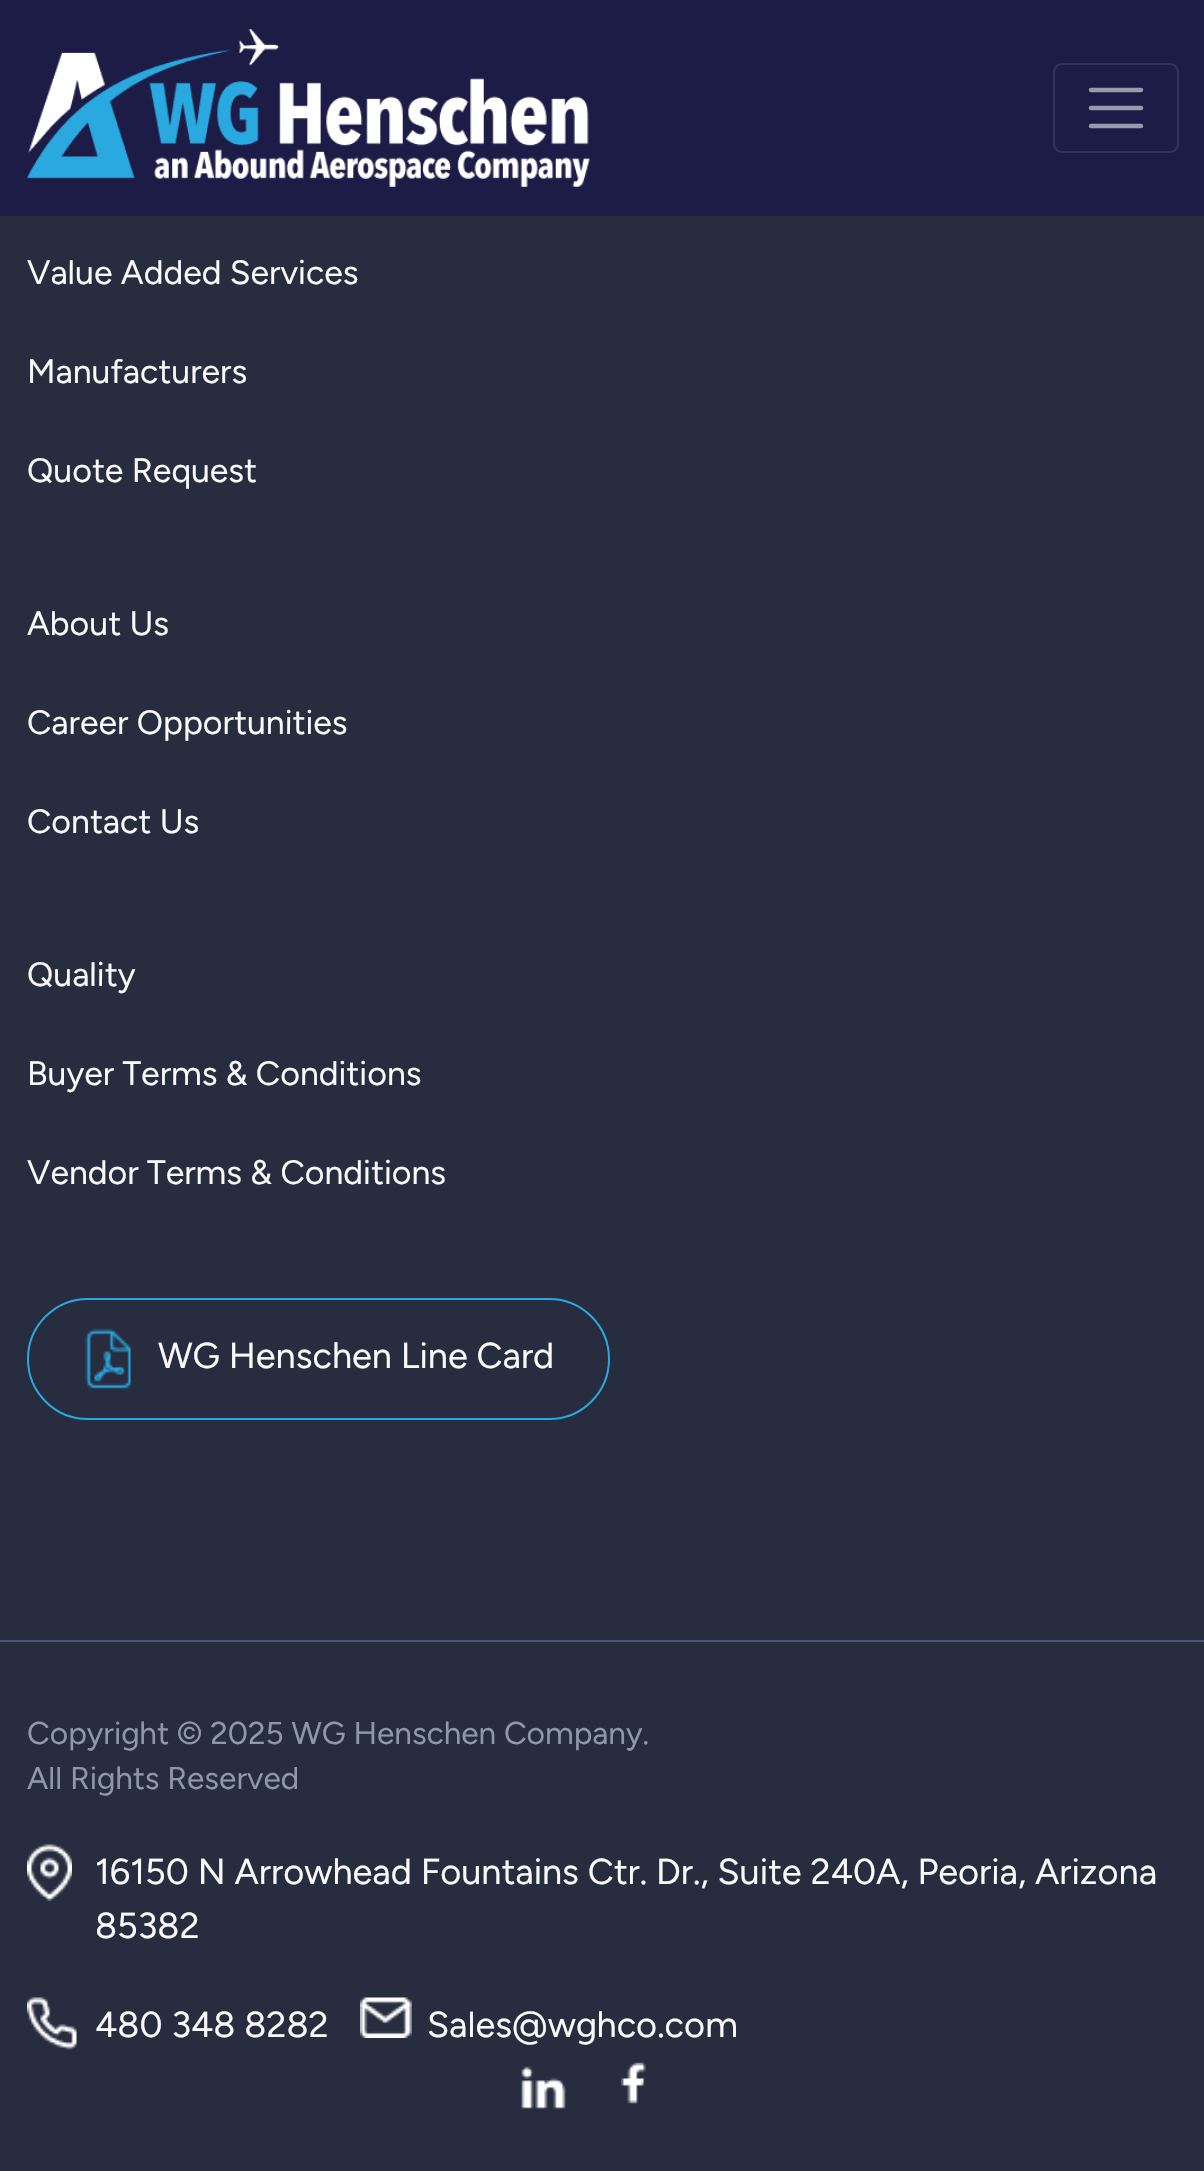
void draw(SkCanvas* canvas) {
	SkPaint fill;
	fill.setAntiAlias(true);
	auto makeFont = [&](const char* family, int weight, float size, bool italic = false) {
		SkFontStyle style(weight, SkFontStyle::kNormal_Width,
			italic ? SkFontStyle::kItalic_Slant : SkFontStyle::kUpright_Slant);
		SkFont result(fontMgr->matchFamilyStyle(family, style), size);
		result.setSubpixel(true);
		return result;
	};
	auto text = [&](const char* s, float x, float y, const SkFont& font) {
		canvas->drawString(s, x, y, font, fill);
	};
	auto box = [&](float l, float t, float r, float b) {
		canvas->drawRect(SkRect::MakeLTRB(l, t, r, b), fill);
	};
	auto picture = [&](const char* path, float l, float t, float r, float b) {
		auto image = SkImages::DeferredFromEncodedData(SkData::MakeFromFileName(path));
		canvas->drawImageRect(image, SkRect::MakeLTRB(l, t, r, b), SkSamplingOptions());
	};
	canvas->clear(0xFF272C3F);
	fill.setColor(0xFF1C1C47);
	box(0, 0, 1204, 216);
	picture("image0.png", 27, 29, 590, 187);
	fill.setStyle(SkPaint::kStroke_Style);
	fill.setStrokeWidth(2);
	fill.setColor(0xFF333359);
	canvas->drawRoundRect(SkRect::MakeLTRB(1054, 64, 1178, 152), 8, 8, fill);
	fill.setStrokeWidth(4.5f);
	fill.setStrokeCap(SkPaint::kRound_Cap);
	fill.setColor(0xFF9999AC);
	canvas->drawPath(SkPathBuilder().moveTo(1091, 90).lineTo(1141, 90).moveTo(1091, 108).lineTo(1141, 108).moveTo(1091, 126).lineTo(1141, 126).detach(), fill);
	fill.setStrokeWidth(2);
	fill.setStrokeCap(SkPaint::kButt_Cap);
	fill.setColor(0xFF2AA9E0);
	canvas->drawRoundRect(SkRect::MakeLTRB(28, 1299, 609, 1419), 60, 60, fill);
	picture("image1.png", 85, 1328, 131, 1389);
	fill.setStyle(SkPaint::kFill_Style);
	fill.setColor(0xFF4A5578);
	box(0, 1640, 1204, 1642);
	picture("image2.png", 27, 1844, 72, 1901);
	picture("image3.png", 27, 1997, 77, 2050);
	picture("image4.png", 360, 1997, 412, 2038);
	picture("image5.png", 521, 2066, 566, 2109);
	picture("image6.png", 621, 2062, 646, 2104);
	auto font1 = makeFont("Figtree", 400, 33.75f);
	fill.setColor(0xFFF9F9FB);
	text("Value Added Services", 27, 284, font1);
	text("Manufacturers", 27, 383, font1);
	text("Quote Request", 27, 482, font1);
	text("About Us", 27, 635, font1);
	text("Career Opportunities", 27, 734, font1);
	text("Contact Us", 27, 833, font1);
	text("Quality", 27, 986, font1);
	text("Buyer Terms & Conditions", 27, 1085, font1);
	text("Vendor Terms & Conditions", 27, 1184, font1);
	auto font2 = makeFont("Figtree", 400, 36);
	text("WG Henschen Line Card", 158, 1368, font2);
	auto font3 = makeFont("Figtree", 400, 31.5f);
	fill.setColor(0xFF8F98A8);
	text("Copyright © 2025 WG Henschen Company.", 27, 1744, font3);
	text("All Rights Reserved", 27, 1789, font3);
	fill.setColor(0xFFF9F9FB);
	text("16150 N Arrowhead Fountains Ctr. Dr., Suite 240A, Peoria, Arizona", 95, 1884, font2);
	text("85382", 95, 1938, font2);
	text("480 348 8282", 95, 2037, font2);
	text("Sales@wghco.com", 427, 2037, font2);
}
